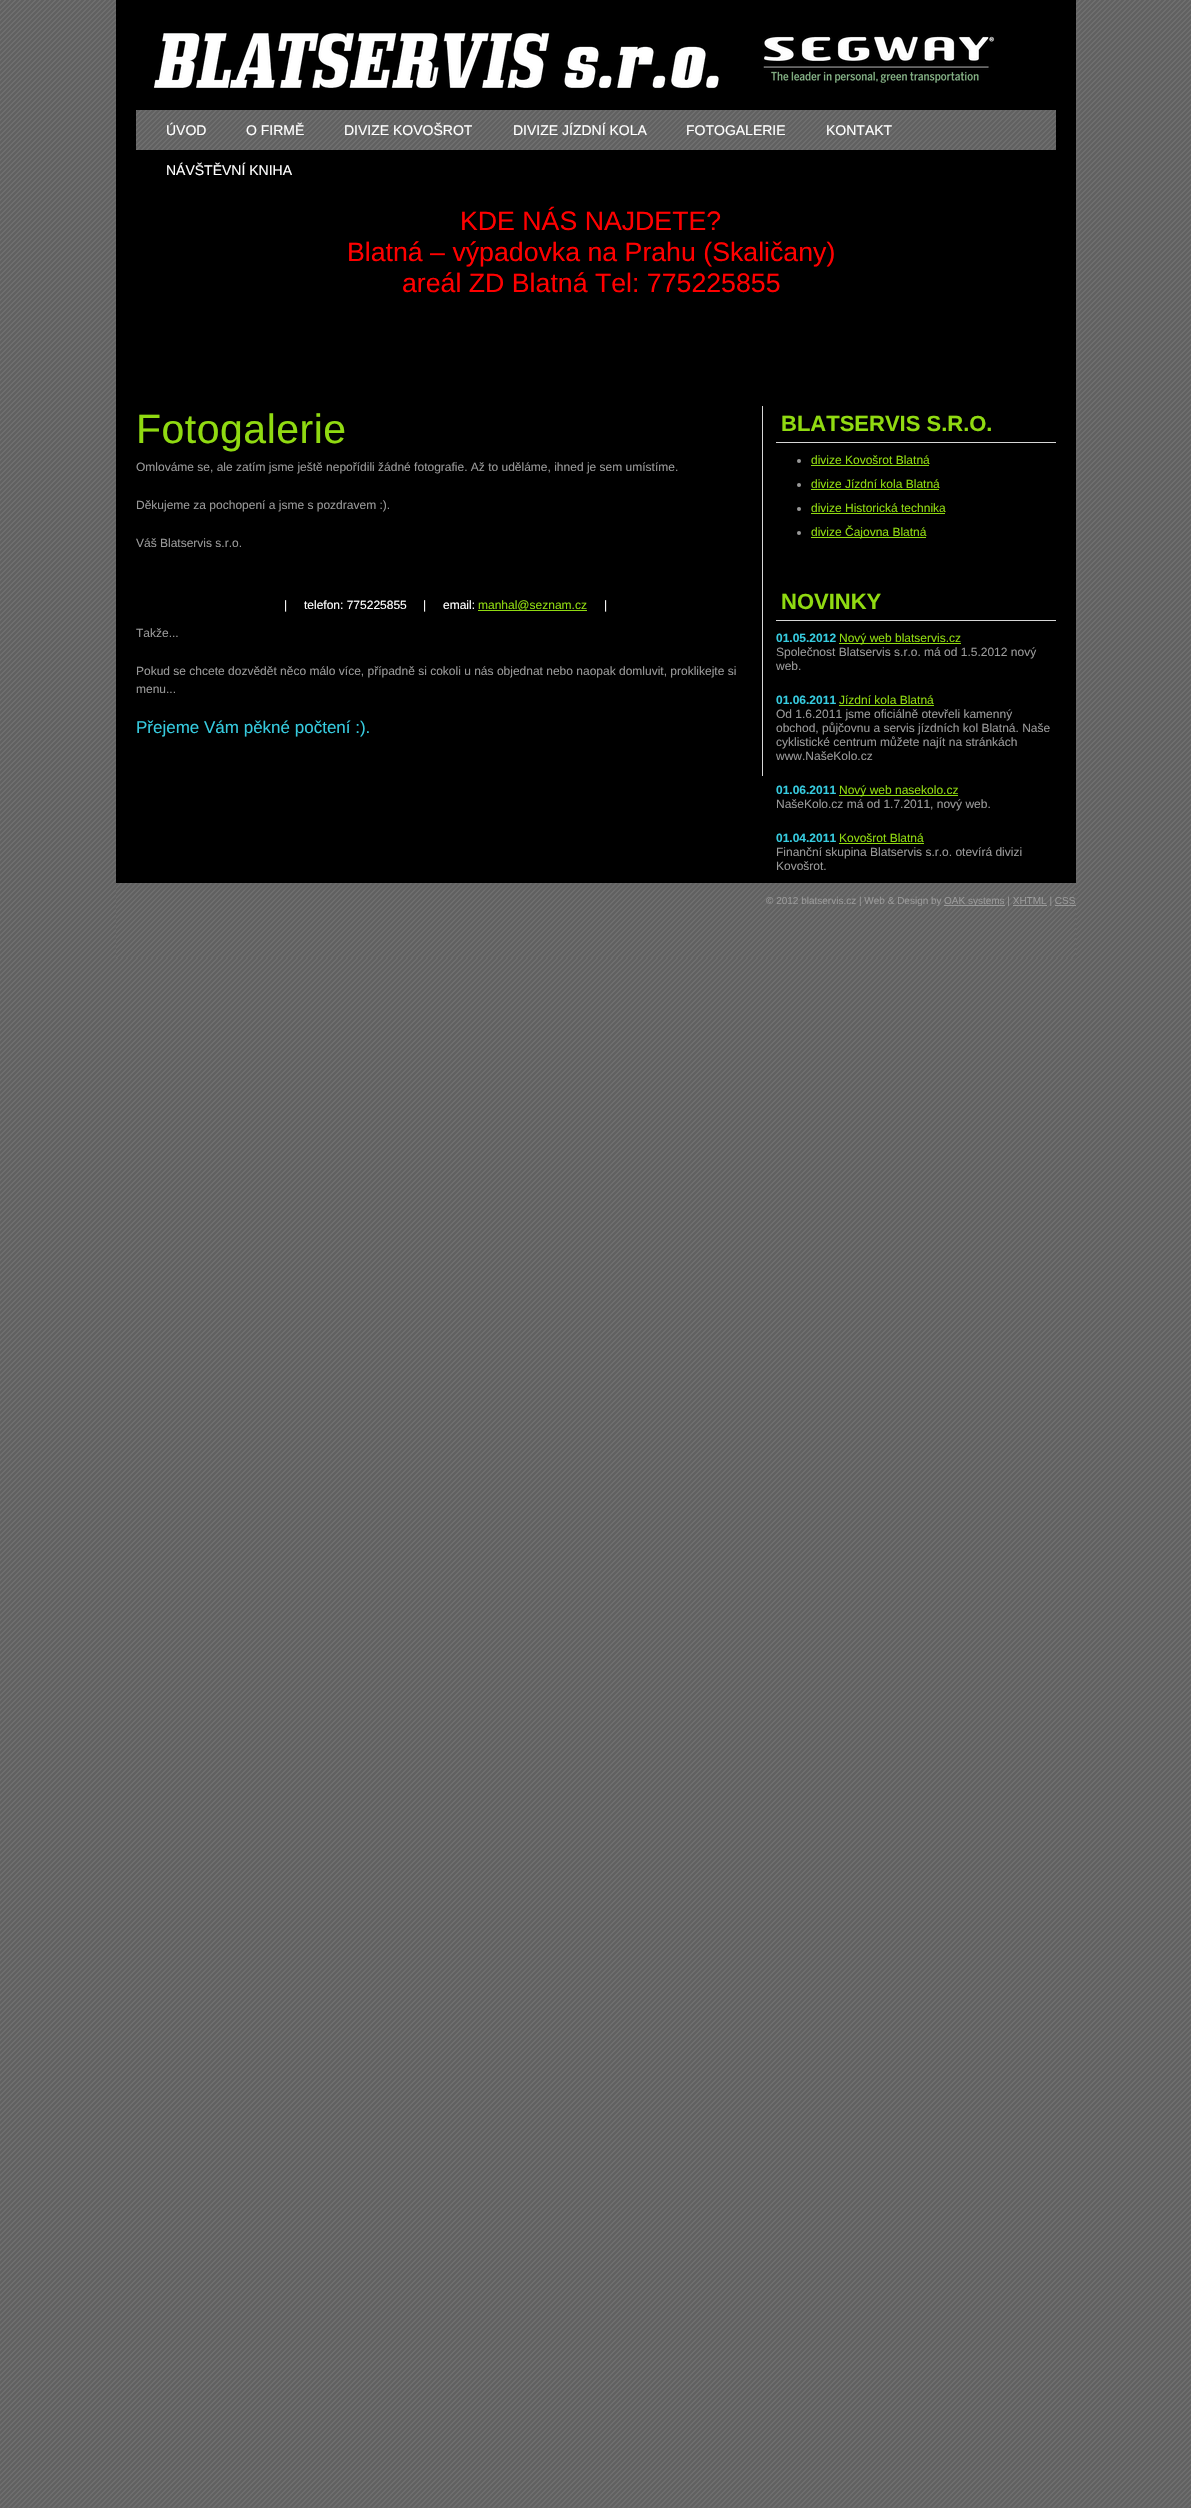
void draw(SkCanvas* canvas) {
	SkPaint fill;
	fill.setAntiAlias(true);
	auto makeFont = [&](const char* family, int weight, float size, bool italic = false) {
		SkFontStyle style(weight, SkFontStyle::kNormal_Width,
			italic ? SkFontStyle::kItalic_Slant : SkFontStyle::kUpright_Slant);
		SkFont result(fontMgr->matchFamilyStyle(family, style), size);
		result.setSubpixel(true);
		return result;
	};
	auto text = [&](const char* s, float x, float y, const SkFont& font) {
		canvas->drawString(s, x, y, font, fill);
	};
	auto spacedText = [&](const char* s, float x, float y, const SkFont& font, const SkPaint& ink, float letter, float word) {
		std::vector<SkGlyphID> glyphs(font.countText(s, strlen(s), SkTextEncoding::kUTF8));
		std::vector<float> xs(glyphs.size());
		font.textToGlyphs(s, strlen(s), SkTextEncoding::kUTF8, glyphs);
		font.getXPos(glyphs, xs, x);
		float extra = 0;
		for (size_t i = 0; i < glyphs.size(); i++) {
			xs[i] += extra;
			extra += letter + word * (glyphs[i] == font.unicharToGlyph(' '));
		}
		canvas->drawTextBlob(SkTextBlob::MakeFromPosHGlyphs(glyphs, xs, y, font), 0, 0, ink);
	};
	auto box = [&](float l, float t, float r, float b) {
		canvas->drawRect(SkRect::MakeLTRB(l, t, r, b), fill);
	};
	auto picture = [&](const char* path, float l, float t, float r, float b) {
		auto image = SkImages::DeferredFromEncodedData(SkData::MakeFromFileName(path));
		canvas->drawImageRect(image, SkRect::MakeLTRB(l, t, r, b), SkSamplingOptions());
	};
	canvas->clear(0xFFFFFFFF);
	picture("image0.png", 0, 0, 1191, 2508);
	fill.setColor(0xFF000000);
	box(116, 0, 1076, 883);
	picture("image1.png", 153, 33, 719, 89);
	picture("image2.png", 762, 35, 995, 85);
	picture("image3.png", 136, 110, 1056, 150);
	fill.setColor(0xFFD6D6D6);
	box(762, 406, 763, 776);
	fill.setColor(0xFF90DA11);
	box(478, 610, 587, 611);
	fill.setColor(0xFFD6D6D6);
	box(776, 442, 1056, 443);
	fill.setColor(0xFF999999);
	canvas->drawCircle(799, 461, 2, fill);
	fill.setColor(0xFF90DA11);
	box(811, 465, 929, 466);
	fill.setColor(0xFF999999);
	canvas->drawCircle(799, 485, 2, fill);
	fill.setColor(0xFF90DA11);
	box(811, 489, 939, 490);
	fill.setColor(0xFF999999);
	canvas->drawCircle(799, 509, 2, fill);
	fill.setColor(0xFF90DA11);
	box(811, 513, 945, 514);
	fill.setColor(0xFF999999);
	canvas->drawCircle(799, 533, 2, fill);
	fill.setColor(0xFF90DA11);
	box(811, 537, 926, 538);
	fill.setColor(0xFFD6D6D6);
	box(776, 620, 1056, 621);
	fill.setColor(0xFF90DA11);
	box(839, 643, 961, 644);
	box(839, 705, 934, 706);
	box(839, 795, 958, 796);
	box(839, 843, 924, 844);
	picture("image4.png", 116, 883, 1076, 958);
	fill.setColor(0xFF999999);
	box(944, 905, 1005, 906);
	box(1013, 905, 1047, 906);
	box(1055, 905, 1076, 906);
	auto font1 = makeFont("Liberation Sans", 400, 14);
	fill.setColor(0xFFFFFFFF);
	text("ÚVOD", 166, 135, font1);
	text("O FIRMĚ", 246, 135, font1);
	text("DIVIZE KOVOŠROT", 344, 135, font1);
	text("DIVIZE JÍZDNÍ KOLA", 513, 135, font1);
	text("FOTOGALERIE", 686, 135, font1);
	text("KONTAKT", 826, 135, font1);
	text("NÁVŠTĚVNÍ KNIHA", 166, 175, font1);
	auto font2 = makeFont("Liberation Sans", 400, 26.7f);
	fill.setColor(0xFFFF0000);
	text("KDE NÁS NAJDETE?", 460, 230, font2);
	text("Blatná – výpadovka na Prahu (Skaličany)", 347, 261, font2);
	text("areál ZD Blatná Tel: 775225855", 402, 292, font2);
	auto font3 = makeFont("Liberation Sans", 400, 41);
	fill.setColor(0xFF90DA11);
	spacedText("Fotogalerie", 136, 443, font3, fill, 0.5f, 0);
	auto font4 = makeFont("Liberation Sans", 400, 12);
	fill.setColor(0xFF999999);
	text("Omlováme se, ale zatím jsme ještě nepořídili žádné fotografie. Až to uděláme, ihned je sem umístíme.", 136, 471, font4);
	text("Děkujeme za pochopení a jsme s pozdravem :).", 136, 509, font4);
	text("Váš Blatservis s.r.o.", 136, 547, font4);
	fill.setColor(0xFFFFFFFF);
	text("|", 284, 609, font4);
	text("telefon: 775225855", 304, 609, font4);
	text("|", 423, 609, font4);
	text("email:", 443, 609, font4);
	fill.setColor(0xFF90DA11);
	text("manhal@seznam.cz", 478, 609, font4);
	fill.setColor(0xFFFFFFFF);
	text("|", 604, 609, font4);
	fill.setColor(0xFF999999);
	text("Takže...", 136, 637, font4);
	text("Pokud se chcete dozvědět něco málo více, případně si cokoli u nás objednat nebo naopak domluvit, proklikejte si", 136, 675, font4);
	text("menu...", 136, 693, font4);
	auto font5 = makeFont("Liberation Sans", 400, 17);
	fill.setColor(0xFF36CBDF);
	text("Přejeme Vám pěkné počtení :).", 136, 733, font5);
	auto font6 = makeFont("Liberation Sans", 700, 22);
	fill.setColor(0xFF90DA11);
	text("BLATSERVIS S.R.O.", 781, 431, font6);
	text("divize Kovošrot Blatná", 811, 464, font4);
	text("divize Jízdní kola Blatná", 811, 488, font4);
	text("divize Historická technika", 811, 512, font4);
	text("divize Čajovna Blatná", 811, 536, font4);
	text("NOVINKY", 781, 609, font6);
	auto font7 = makeFont("Liberation Sans", 700, 12);
	fill.setColor(0xFF36CBDF);
	text("01.05.2012", 776, 642, font7);
	fill.setColor(0xFF90DA11);
	text("Nový web blatservis.cz", 839, 642, font4);
	fill.setColor(0xFF999999);
	text("Společnost Blatservis s.r.o. má od 1.5.2012 nový", 776, 656, font4);
	text("web.", 776, 670, font4);
	fill.setColor(0xFF36CBDF);
	text("01.06.2011", 776, 704, font7);
	fill.setColor(0xFF90DA11);
	text("Jízdní kola Blatná", 839, 704, font4);
	fill.setColor(0xFF999999);
	text("Od 1.6.2011 jsme oficiálně otevřeli kamenný", 776, 718, font4);
	text("obchod, půjčovnu a servis jízdních kol Blatná. Naše", 776, 732, font4);
	text("cyklistické centrum můžete najít na stránkách", 776, 746, font4);
	text("www.NašeKolo.cz", 776, 760, font4);
	fill.setColor(0xFF36CBDF);
	text("01.06.2011", 776, 794, font7);
	fill.setColor(0xFF90DA11);
	text("Nový web nasekolo.cz", 839, 794, font4);
	fill.setColor(0xFF999999);
	text("NašeKolo.cz má od 1.7.2011, nový web.", 776, 808, font4);
	fill.setColor(0xFF36CBDF);
	text("01.04.2011", 776, 842, font7);
	fill.setColor(0xFF90DA11);
	text("Kovošrot Blatná", 839, 842, font4);
	fill.setColor(0xFF999999);
	text("Finanční skupina Blatservis s.r.o. otevírá divizi", 776, 856, font4);
	text("Kovošrot.", 776, 870, font4);
	auto font8 = makeFont("Liberation Sans", 400, 10);
	text("© 2012 blatservis.cz | Web & Design by", 766, 904, font8);
	text("OAK systems | XHTML | CSS", 944, 904, font8);
}
